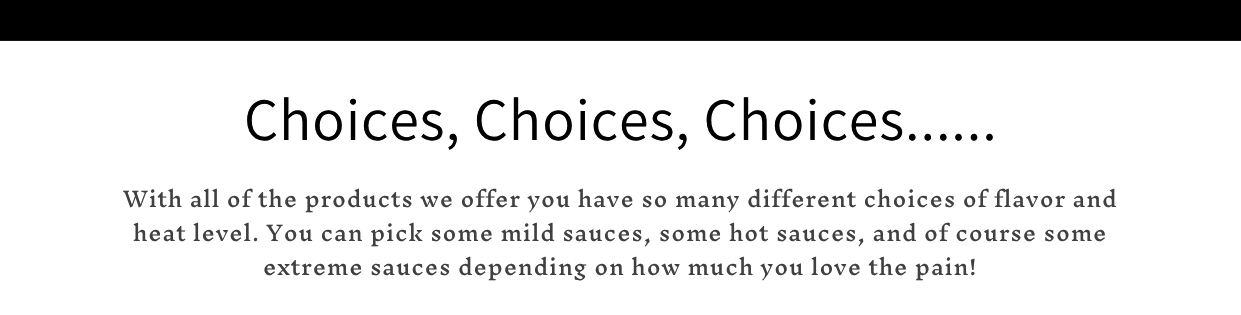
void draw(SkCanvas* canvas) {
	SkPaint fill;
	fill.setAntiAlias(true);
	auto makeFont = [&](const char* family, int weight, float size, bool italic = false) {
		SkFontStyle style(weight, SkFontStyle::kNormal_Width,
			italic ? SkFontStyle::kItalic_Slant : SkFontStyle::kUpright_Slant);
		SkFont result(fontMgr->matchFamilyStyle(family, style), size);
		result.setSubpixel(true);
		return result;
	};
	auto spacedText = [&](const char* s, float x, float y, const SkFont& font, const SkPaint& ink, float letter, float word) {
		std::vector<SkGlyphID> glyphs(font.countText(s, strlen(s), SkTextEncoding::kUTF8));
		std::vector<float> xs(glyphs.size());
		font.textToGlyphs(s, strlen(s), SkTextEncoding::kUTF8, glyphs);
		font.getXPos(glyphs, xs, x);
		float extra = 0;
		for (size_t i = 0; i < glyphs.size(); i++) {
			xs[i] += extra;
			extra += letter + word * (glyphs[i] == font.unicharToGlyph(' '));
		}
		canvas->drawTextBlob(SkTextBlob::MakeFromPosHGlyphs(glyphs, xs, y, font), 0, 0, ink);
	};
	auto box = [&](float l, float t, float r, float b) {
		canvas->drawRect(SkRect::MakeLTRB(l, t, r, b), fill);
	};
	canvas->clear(0xFFFFFFFF);
	fill.setColor(0xFF000000);
	box(0, 0, 1241, 40);
	fill.setColor(0xFF141414);
	box(0, 40, 1241, 41);
	auto font1 = makeFont("Assistant", 400, 60);
	fill.setColor(0xFF000000);
	spacedText("Choices, Choices, Choices......", 244, 140, font1, fill, 0.9f, 0);
	auto font2 = makeFont("Inknut Antiqua", 400, 20.8f);
	fill.setColor(0xFF404040);
	spacedText("With all of the products we offer you have so many different choices of flavor and", 123, 207, font2, fill, 0.78f, 0);
	spacedText("heat level. You can pick some mild sauces, some hot sauces, and of course some", 133, 241, font2, fill, 0.78f, 0);
	spacedText("extreme sauces depending on how much you love the pain!", 263, 275, font2, fill, 0.78f, 0);
}
